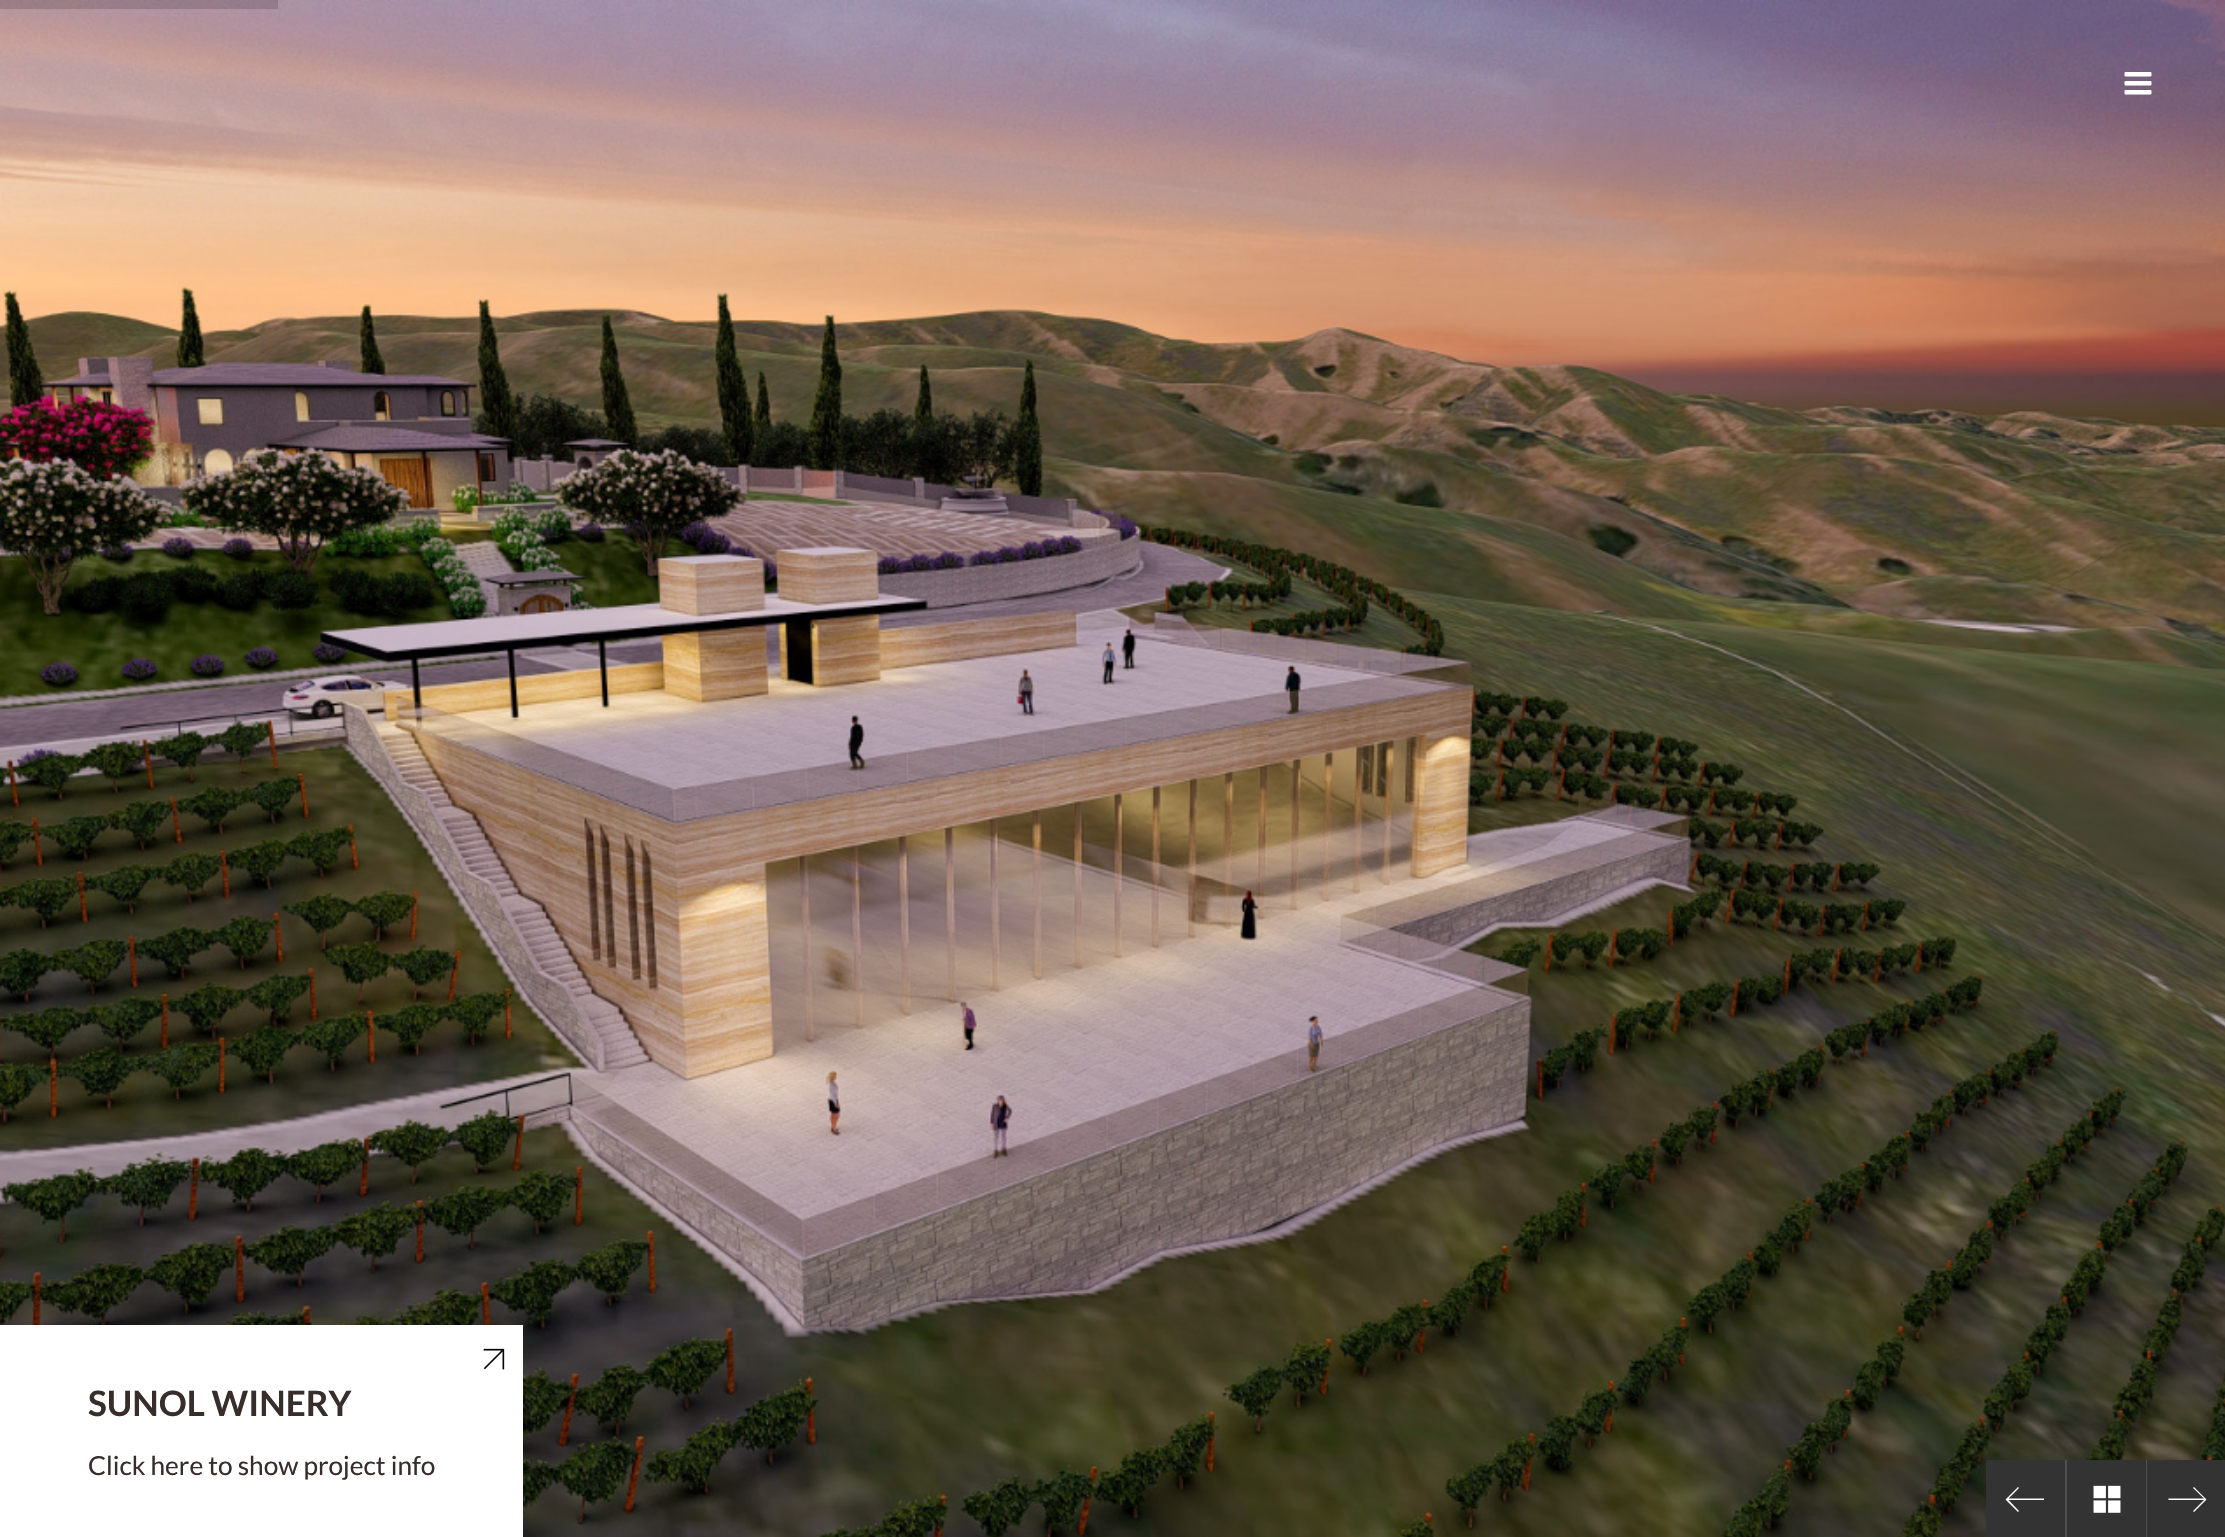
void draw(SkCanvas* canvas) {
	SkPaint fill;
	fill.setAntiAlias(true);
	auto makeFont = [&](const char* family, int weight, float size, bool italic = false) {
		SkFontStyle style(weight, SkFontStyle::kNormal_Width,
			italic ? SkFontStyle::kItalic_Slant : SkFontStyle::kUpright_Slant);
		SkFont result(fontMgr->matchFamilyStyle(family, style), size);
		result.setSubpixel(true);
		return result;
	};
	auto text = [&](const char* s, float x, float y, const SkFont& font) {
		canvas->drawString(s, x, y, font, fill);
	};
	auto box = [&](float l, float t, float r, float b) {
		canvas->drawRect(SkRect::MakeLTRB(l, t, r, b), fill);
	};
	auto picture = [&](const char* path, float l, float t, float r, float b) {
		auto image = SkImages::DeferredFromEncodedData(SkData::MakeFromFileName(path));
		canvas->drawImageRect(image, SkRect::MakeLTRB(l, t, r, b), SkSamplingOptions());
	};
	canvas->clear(0xFFFFFFFF);
	picture("image1.png", 0, 0, 2225, 1537);
	picture("image0.png", 2124, 72, 2152, 95);
	fill.setColor(0x26000000);
	box(0, 0, 278, 9);
	fill.setColor(0xFFFFFFFF);
	box(0, 1325, 523, 1537);
	picture("image2.png", 483, 1348, 505, 1370);
	fill.setColor(0xFF333333);
	box(1986, 1460, 2065, 1537);
	fill.setColor(0xFFFFFFFF);
	canvas->drawPath(SkPathBuilder().moveTo(2018, 1487).lineTo(2019, 1488).lineTo(2008.5f, 1498.5f).lineTo(2044, 1498.5f).lineTo(2044, 1500).lineTo(2008.5f, 1500).lineTo(2019, 1511).lineTo(2018, 1512).lineTo(2005.5f, 1499.5f).close().detach(), fill);
	fill.setColor(0xFF333333);
	box(2067, 1460, 2146, 1537);
	fill.setColor(0xFF505050);
	box(2146, 1460, 2147, 1537);
	box(2065, 1460, 2067, 1537);
	picture("image3.png", 2093, 1485, 2121, 1513);
	fill.setColor(0xFF333333);
	box(2147, 1460, 2225, 1537);
	fill.setColor(0xFFFFFFFF);
	canvas->drawPath(SkPathBuilder().moveTo(2194, 1487).lineTo(2193, 1488).lineTo(2204, 1498.5f).lineTo(2168.5f, 1498.5f).lineTo(2168.5f, 1500).lineTo(2204, 1500).lineTo(2193, 1511).lineTo(2194, 1512).lineTo(2206.5f, 1499.5f).close().detach(), fill);
	auto font1 = makeFont("Lato", 700, 35);
	fill.setColor(0xFF372D2B);
	text("SUNOL WINERY", 88, 1416, font1);
	auto font2 = makeFont("Lato", 400, 26.25f);
	text("Click here to show project info", 88, 1475, font2);
}
